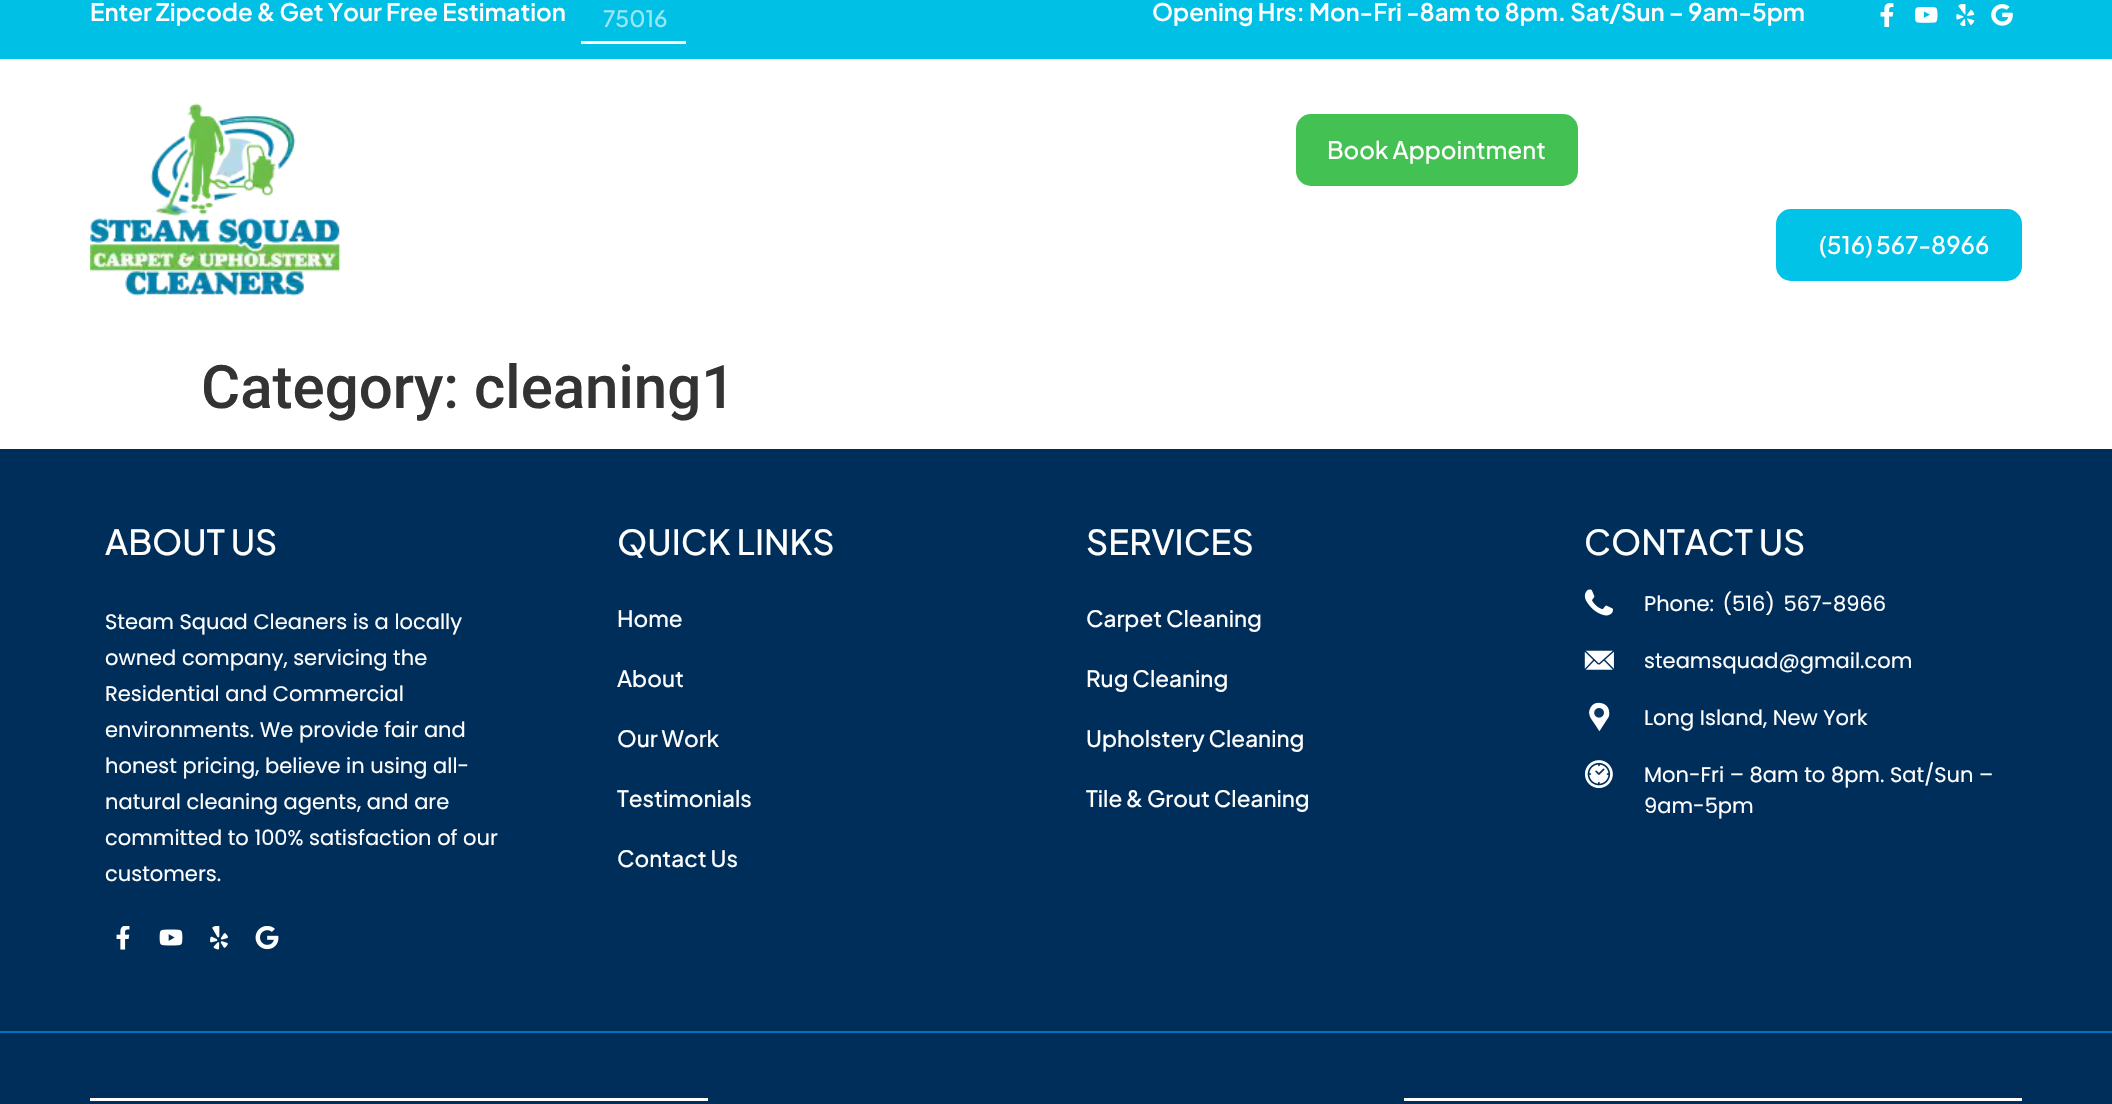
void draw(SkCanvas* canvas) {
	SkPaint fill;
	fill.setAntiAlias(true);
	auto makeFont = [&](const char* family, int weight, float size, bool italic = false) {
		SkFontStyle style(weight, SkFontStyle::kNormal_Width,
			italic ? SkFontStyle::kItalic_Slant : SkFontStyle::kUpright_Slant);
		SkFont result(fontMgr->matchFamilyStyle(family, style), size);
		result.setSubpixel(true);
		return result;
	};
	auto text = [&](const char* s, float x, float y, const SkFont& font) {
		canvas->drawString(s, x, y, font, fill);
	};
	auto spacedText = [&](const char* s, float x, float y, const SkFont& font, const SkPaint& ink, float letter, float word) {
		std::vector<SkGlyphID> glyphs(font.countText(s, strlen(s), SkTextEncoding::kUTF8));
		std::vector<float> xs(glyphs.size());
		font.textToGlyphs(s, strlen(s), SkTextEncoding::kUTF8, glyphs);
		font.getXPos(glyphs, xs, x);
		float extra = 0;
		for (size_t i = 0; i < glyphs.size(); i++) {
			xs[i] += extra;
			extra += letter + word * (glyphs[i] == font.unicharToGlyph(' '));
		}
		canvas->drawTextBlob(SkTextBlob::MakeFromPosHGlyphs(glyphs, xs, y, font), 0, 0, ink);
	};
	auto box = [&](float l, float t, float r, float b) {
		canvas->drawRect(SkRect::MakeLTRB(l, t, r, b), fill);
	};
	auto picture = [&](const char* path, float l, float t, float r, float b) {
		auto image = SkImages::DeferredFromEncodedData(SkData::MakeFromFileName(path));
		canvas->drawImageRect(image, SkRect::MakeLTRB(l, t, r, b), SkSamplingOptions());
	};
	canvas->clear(0xFFFFFFFF);
	fill.setColor(0xFF00C0E5);
	box(0, 0, 2112, 59);
	fill.setColor(0xFFFFFFFF);
	box(581, 41, 686, 44);
	picture("image0.png", 1880, 3, 1894, 27);
	picture("image1.png", 1915, 7, 1938, 23);
	picture("image2.png", 1956, 4, 1975, 26);
	picture("image3.png", 1991, 4, 2013, 26);
	picture("image4.png", 90, 103, 341, 296);
	fill.setColor(0xFF43C152);
	canvas->drawRoundRect(SkRect::MakeLTRB(1297, 115, 1577, 185), 14, 14, fill);
	fill.setStyle(SkPaint::kStroke_Style);
	fill.setStrokeWidth(2);
	canvas->drawRoundRect(SkRect::MakeLTRB(1297, 115, 1577, 185), 14, 14, fill);
	fill.setStyle(SkPaint::kFill_Style);
	fill.setColor(0xFF00C3E7);
	canvas->drawRoundRect(SkRect::MakeLTRB(1777, 210, 2021, 280), 14, 14, fill);
	fill.setStyle(SkPaint::kStroke_Style);
	canvas->drawRoundRect(SkRect::MakeLTRB(1777, 210, 2021, 280), 14, 14, fill);
	fill.setStyle(SkPaint::kFill_Style);
	fill.setColor(0xFF002E5A);
	box(0, 449, 2112, 1031);
	picture("image5.png", 116, 926, 130, 950);
	picture("image6.png", 159, 929, 183, 946);
	picture("image7.png", 210, 926, 228, 950);
	picture("image8.png", 255, 926, 279, 950);
	picture("image9.png", 1584, 589, 1613, 616);
	picture("image10.png", 1584, 650, 1614, 670);
	picture("image11.png", 1589, 702, 1610, 732);
	picture("image12.png", 1585, 760, 1613, 788);
	box(0, 1033, 2112, 1104);
	fill.setColor(0xFF0072BC);
	box(0, 1031, 2112, 1033);
	fill.setColor(0xFFFFFFFF);
	box(90, 1098, 708, 1101);
	box(1404, 1098, 2022, 1101);
	auto font1 = makeFont("Plus Jakarta Sans", 600, 24);
	text("Enter Zipcode & Get Your Free Estimation", 90, 21, font1);
	auto font2 = makeFont("Plus Jakarta Sans", 500, 22.5f);
	fill.setColor(0xFF99E6F5);
	text("75016", 603, 27, font2);
	fill.setColor(0xFFFFFFFF);
	text("Opening Hrs: Mon-Fri -8am to 8pm. Sat/Sun – 9am-5pm", 1152, 21, font1);
	auto font3 = makeFont("Plus Jakarta Sans", 500, 24);
	text("Book Appointment", 1327, 159, font3);
	spacedText("(516) 567-8966", 1819, 254, font3, fill, 0, -1);
	auto font4 = makeFont("Roboto", 500, 60);
	fill.setColor(0xFF333333);
	text("Category: cleaning1", 201, 408, font4);
	auto font5 = makeFont("Plus Jakarta Sans", 500, 34.5f);
	fill.setColor(0xFFFFFFFF);
	text("ABOUT US", 105, 555, font5);
	auto font6 = makeFont("Poppins", 400, 21);
	text("Steam Squad Cleaners is a locally", 105, 629, font6);
	text("owned company, servicing the", 105, 665, font6);
	text("Residential and Commercial", 105, 701, font6);
	text("environments. We provide fair and", 105, 737, font6);
	text("honest pricing, believe in using all-", 105, 773, font6);
	text("natural cleaning agents, and are", 105, 809, font6);
	text("committed to 100% satisfaction of our", 105, 845, font6);
	text("customers.", 105, 881, font6);
	text("QUICK LINKS", 617, 555, font5);
	text("Home", 617, 627, font2);
	text("About", 617, 687, font2);
	text("Our Work", 617, 747, font2);
	text("Testimonials", 617, 807, font2);
	text("Contact Us", 617, 867, font2);
	text("SERVICES", 1086, 555, font5);
	text("Carpet Cleaning", 1086, 627, font2);
	text("Rug Cleaning", 1086, 687, font2);
	text("Upholstery Cleaning", 1086, 747, font2);
	text("Tile & Grout Cleaning", 1086, 807, font2);
	text("CONTACT US", 1584, 555, font5);
	spacedText("Phone: (516) 567-8966", 1644, 611, font6, fill, 0, 3);
	text("steamsquad@gmail.com", 1644, 668, font6);
	text("Long Island, New York", 1644, 725, font6);
	text("Mon-Fri – 8am to 8pm. Sat/Sun –", 1644, 782, font6);
	text("9am-5pm", 1644, 813, font6);
}
